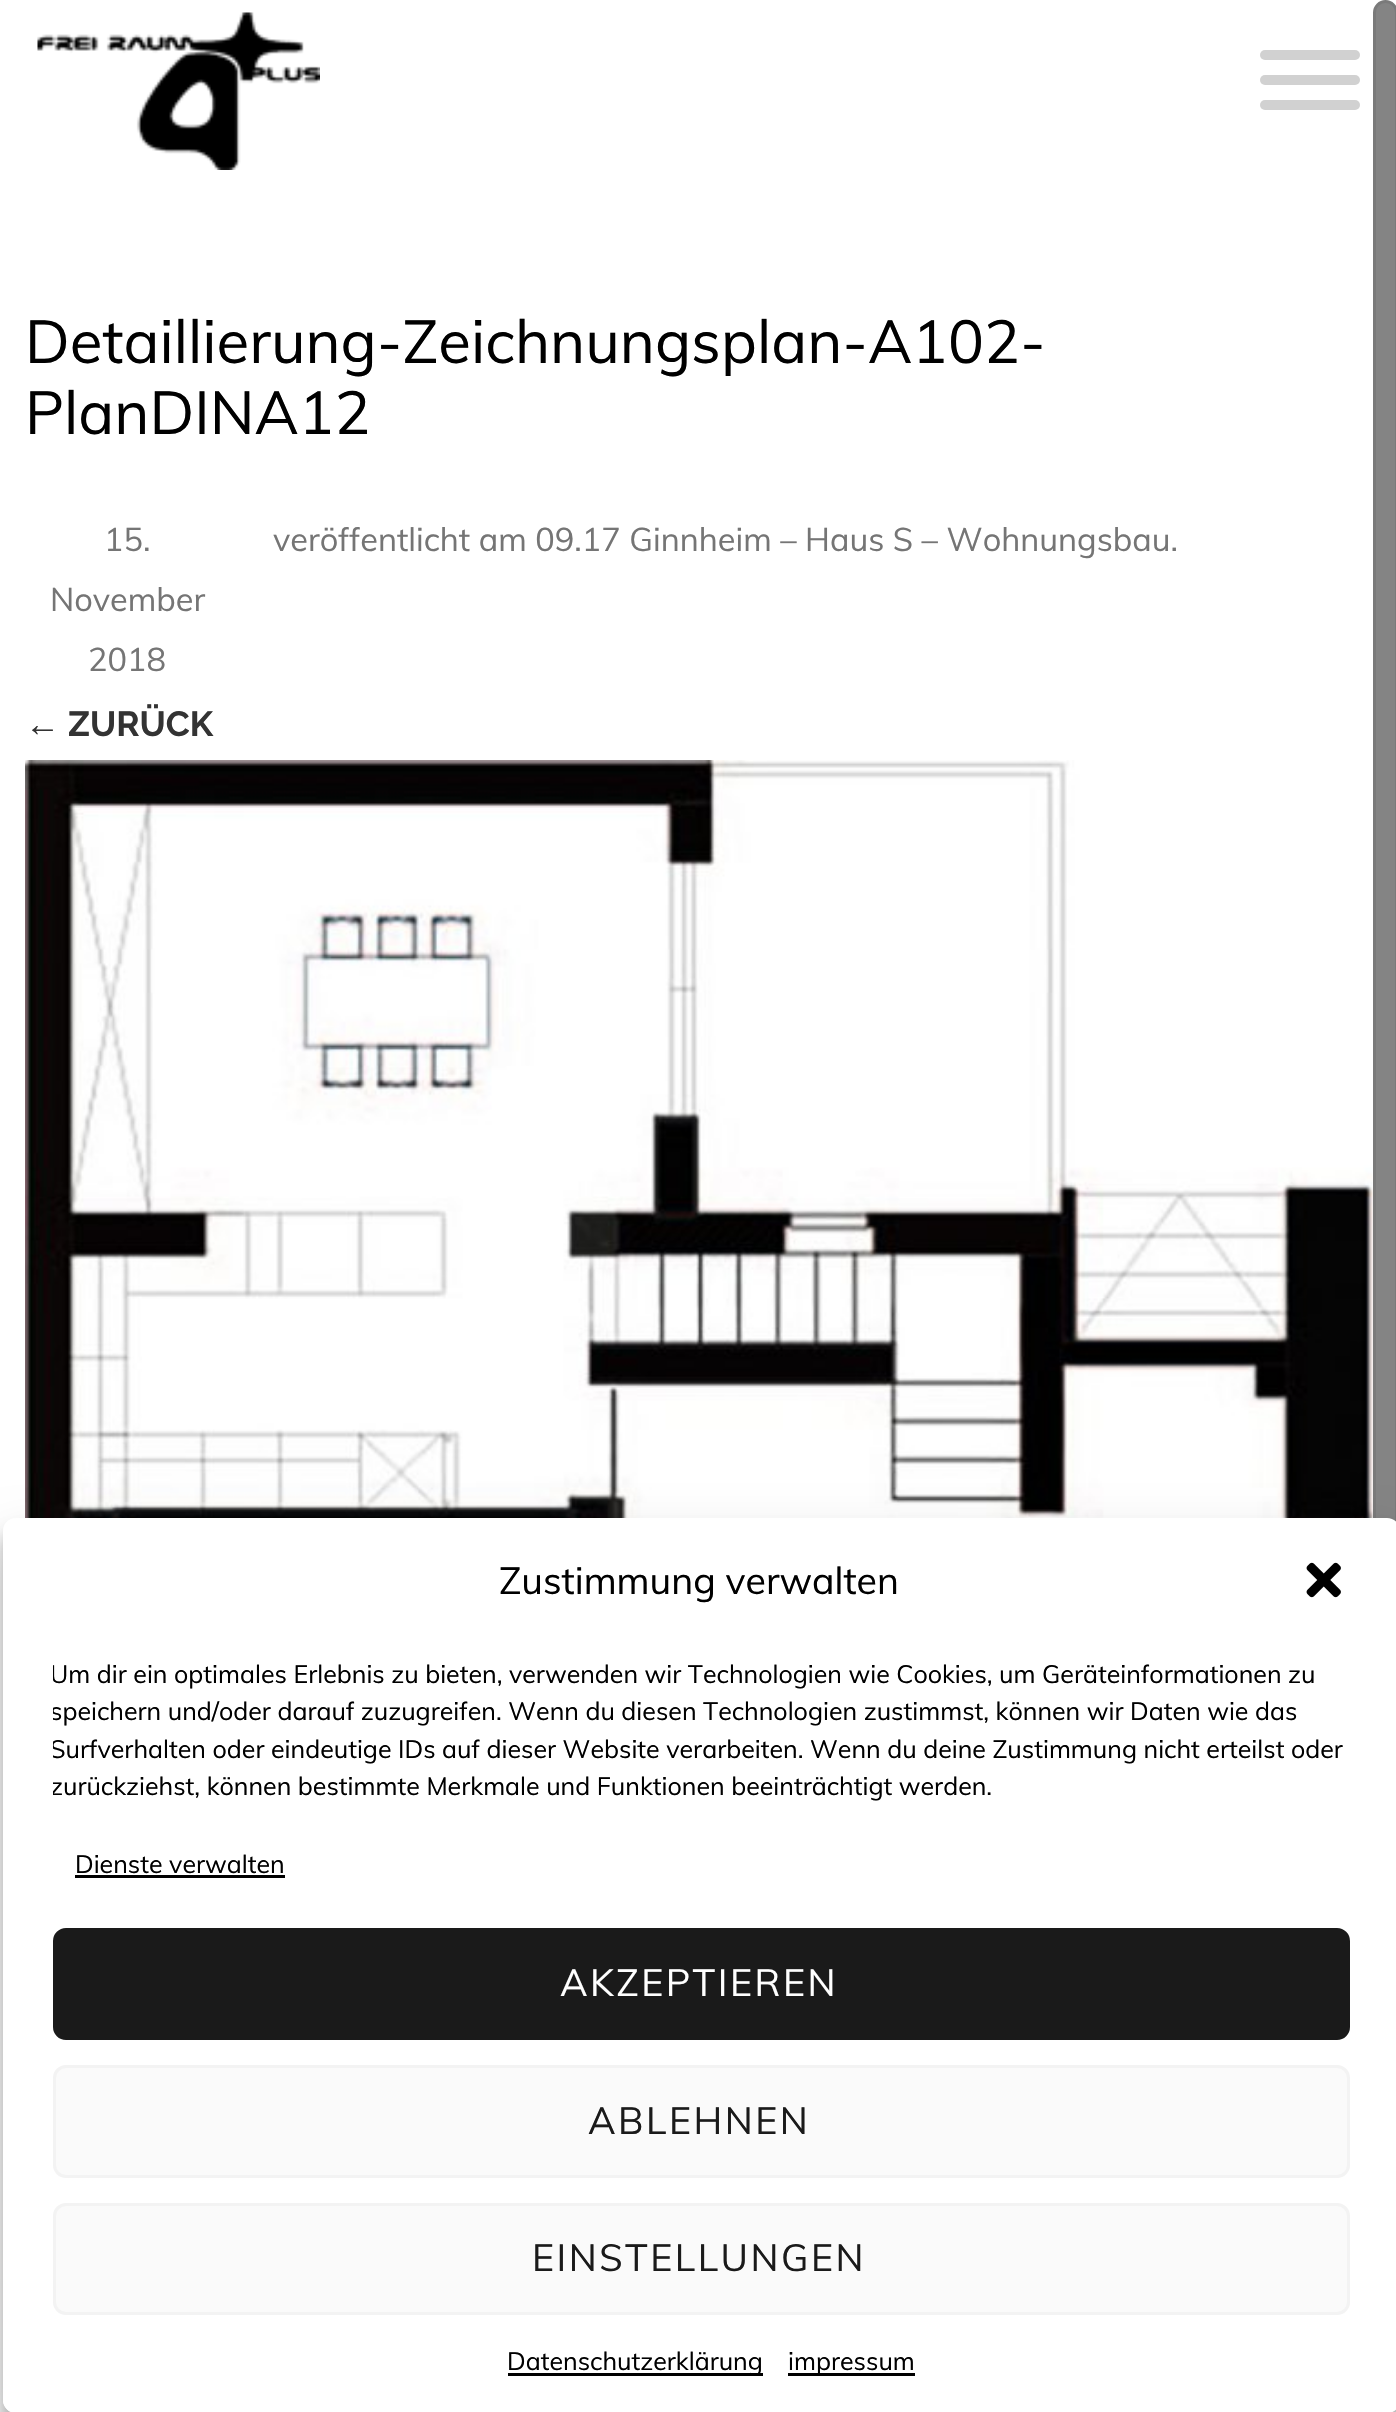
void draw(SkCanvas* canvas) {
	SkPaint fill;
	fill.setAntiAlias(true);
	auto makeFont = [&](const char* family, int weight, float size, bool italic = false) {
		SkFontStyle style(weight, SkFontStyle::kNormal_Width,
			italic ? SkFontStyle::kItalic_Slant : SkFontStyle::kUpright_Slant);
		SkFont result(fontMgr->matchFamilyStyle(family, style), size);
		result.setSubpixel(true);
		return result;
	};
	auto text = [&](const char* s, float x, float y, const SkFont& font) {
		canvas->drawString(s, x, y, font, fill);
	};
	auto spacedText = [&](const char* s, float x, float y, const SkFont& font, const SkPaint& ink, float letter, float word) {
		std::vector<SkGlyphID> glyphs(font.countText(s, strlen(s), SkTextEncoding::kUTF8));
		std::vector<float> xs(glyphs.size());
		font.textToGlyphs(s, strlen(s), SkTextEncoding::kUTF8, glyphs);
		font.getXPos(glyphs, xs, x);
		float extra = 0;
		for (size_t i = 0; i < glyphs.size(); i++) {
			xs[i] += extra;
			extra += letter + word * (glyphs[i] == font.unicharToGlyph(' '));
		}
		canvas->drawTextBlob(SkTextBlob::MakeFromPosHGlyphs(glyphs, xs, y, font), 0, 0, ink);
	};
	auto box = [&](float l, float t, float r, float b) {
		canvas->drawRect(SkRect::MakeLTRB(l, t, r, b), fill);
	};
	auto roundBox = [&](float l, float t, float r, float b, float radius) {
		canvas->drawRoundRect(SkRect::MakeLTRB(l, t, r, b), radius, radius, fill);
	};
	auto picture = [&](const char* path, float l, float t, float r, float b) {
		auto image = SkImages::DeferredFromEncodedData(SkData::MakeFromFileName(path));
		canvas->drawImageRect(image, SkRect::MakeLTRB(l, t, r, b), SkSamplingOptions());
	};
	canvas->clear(0xFFFFFFFF);
	picture("image0.png", 37, 12, 320, 170);
	fill.setColor(0xFFD1D1D1);
	roundBox(1260, 50, 1360, 60, 5);
	roundBox(1260, 75, 1360, 85, 5);
	roundBox(1260, 100, 1360, 110, 5);
	picture("image1.png", 25, 760, 1373, 1518);
	fill.setColor(0xFF848484);
	canvas->drawRoundRect(SkRect::MakeLTRB(1374.5f, 1.5f, 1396.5f, 2013.5f), 11, 11, fill);
	fill.setStyle(SkPaint::kStroke_Style);
	fill.setStrokeWidth(3);
	fill.setColor(0xFF7A7A7A);
	canvas->drawRoundRect(SkRect::MakeLTRB(1374.5f, 1.5f, 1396.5f, 2013.5f), 11, 11, fill);
	canvas->save();
	canvas->clipPath(SkPathBuilder(SkPathFillType::kEvenOdd).moveTo(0, 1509).lineTo(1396, 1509).lineTo(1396, 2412).lineTo(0, 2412).close().moveTo(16, 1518).lineTo(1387, 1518).cubicTo(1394, 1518, 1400, 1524, 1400, 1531).lineTo(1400, 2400).cubicTo(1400, 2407, 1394, 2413, 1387, 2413).lineTo(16, 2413).cubicTo(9, 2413, 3, 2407, 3, 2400).lineTo(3, 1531).cubicTo(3, 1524, 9, 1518, 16, 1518).close().detach(), true);
	fill.setStyle(SkPaint::kFill_Style);
	fill.setColor(0x3B000000);
	fill.setMaskFilter(SkMaskFilter::MakeBlur(kNormal_SkBlurStyle, 7.5f));
	canvas->drawRoundRect(SkRect::MakeLTRB(3, 1533, 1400, 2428), 13, 13, fill);
	fill.setMaskFilter(nullptr);
	canvas->restore();
	canvas->save();
	canvas->clipPath(SkPathBuilder(SkPathFillType::kEvenOdd).moveTo(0, 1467).lineTo(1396, 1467).lineTo(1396, 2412).lineTo(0, 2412).close().moveTo(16, 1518).lineTo(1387, 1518).cubicTo(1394, 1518, 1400, 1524, 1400, 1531).lineTo(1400, 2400).cubicTo(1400, 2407, 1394, 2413, 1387, 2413).lineTo(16, 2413).cubicTo(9, 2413, 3, 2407, 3, 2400).lineTo(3, 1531).cubicTo(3, 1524, 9, 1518, 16, 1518).close().detach(), true);
	fill.setColor(0x30000000);
	fill.setMaskFilter(SkMaskFilter::MakeBlur(kNormal_SkBlurStyle, 25));
	canvas->drawRoundRect(SkRect::MakeLTRB(3, 1543, 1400, 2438), 13, 13, fill);
	fill.setMaskFilter(nullptr);
	canvas->restore();
	fill.setColor(0xFFFFFFFF);
	roundBox(3, 1518, 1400, 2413, 13);
	picture("image2.png", 1306, 1562, 1341, 1598);
	fill.setColor(0xFF000000);
	box(75, 1875, 285, 1878);
	fill.setColor(0xFF1A1A1A);
	canvas->drawRoundRect(SkRect::MakeLTRB(54.5f, 1929.5f, 1348.5f, 2038.5f), 11.5f, 11.5f, fill);
	fill.setStyle(SkPaint::kStroke_Style);
	canvas->drawRoundRect(SkRect::MakeLTRB(54.5f, 1929.5f, 1348.5f, 2038.5f), 11.5f, 11.5f, fill);
	fill.setStyle(SkPaint::kFill_Style);
	fill.setColor(0xFFFAFAFA);
	canvas->drawRoundRect(SkRect::MakeLTRB(54.5f, 2066.5f, 1348.5f, 2176.5f), 11.5f, 11.5f, fill);
	fill.setStyle(SkPaint::kStroke_Style);
	fill.setColor(0xFFF3F3F3);
	canvas->drawRoundRect(SkRect::MakeLTRB(54.5f, 2066.5f, 1348.5f, 2176.5f), 11.5f, 11.5f, fill);
	fill.setStyle(SkPaint::kFill_Style);
	fill.setColor(0xFFFAFAFA);
	canvas->drawRoundRect(SkRect::MakeLTRB(54.5f, 2204.5f, 1348.5f, 2313.5f), 11.5f, 11.5f, fill);
	fill.setStyle(SkPaint::kStroke_Style);
	fill.setColor(0xFFF3F3F3);
	canvas->drawRoundRect(SkRect::MakeLTRB(54.5f, 2204.5f, 1348.5f, 2313.5f), 11.5f, 11.5f, fill);
	fill.setStyle(SkPaint::kFill_Style);
	fill.setColor(0xFF000000);
	box(508, 2373, 763, 2376);
	box(788, 2373, 915, 2376);
	auto font1 = makeFont("Muli", 400, 60);
	text("Detaillierung-Zeichnungsplan-A102-", 25, 363, font1);
	text("PlanDINA12", 25, 434, font1);
	auto font2 = makeFont("Muli", 400, 32.5f);
	fill.setColor(0xFF757575);
	text("15.", 104, 551, font2);
	text("November", 50, 611, font2);
	text("2018", 88, 671, font2);
	text("veröffentlicht am 09.17 Ginnheim – Haus S – Wohnungsbau.", 273, 551, font2);
	auto font3 = makeFont("Liberation Sans", 700, 35);
	fill.setColor(0xFF333333);
	text("←", 25, 736, font3);
	auto font4 = makeFont("Raleway", 700, 35);
	text("ZURÜCK", 68, 736, font4);
	auto font5 = makeFont("Muli", 400, 37.5f);
	fill.setColor(0xFF000000);
	text("Zustimmung verwalten", 499, 1594, font5);
	canvas->save();
	canvas->clipRect(SkRect::MakeLTRB(53, 1655, 1350, 1818));
	auto font6 = makeFont("Muli", 400, 25);
	text("Um dir ein optimales Erlebnis zu bieten, verwenden wir Technologien wie Cookies, um Geräteinformationen zu", 50, 1683, font6);
	text("speichern und/oder darauf zuzugreifen. Wenn du diesen Technologien zustimmst, können wir Daten wie das", 50, 1720, font6);
	text("Surfverhalten oder eindeutige IDs auf dieser Website verarbeiten. Wenn du deine Zustimmung nicht erteilst oder", 50, 1758, font6);
	text("zurückziehst, können bestimmte Merkmale und Funktionen beeinträchtigt werden.", 50, 1795, font6);
	canvas->restore();
	text("Dienste verwalten", 75, 1873, font6);
	fill.setColor(0xFFFFFFFF);
	spacedText("AKZEPTIEREN", 560, 1996, font5, fill, 2.5f, 0);
	fill.setColor(0xFF1A1A1A);
	spacedText("ABLEHNEN", 588, 2134, font5, fill, 2.5f, 0);
	spacedText("EINSTELLUNGEN", 532, 2271, font5, fill, 2.5f, 0);
	fill.setColor(0xFF000000);
	text("Datenschutzerklärung", 507, 2370, font6);
	text("impressum", 788, 2370, font6);
}
